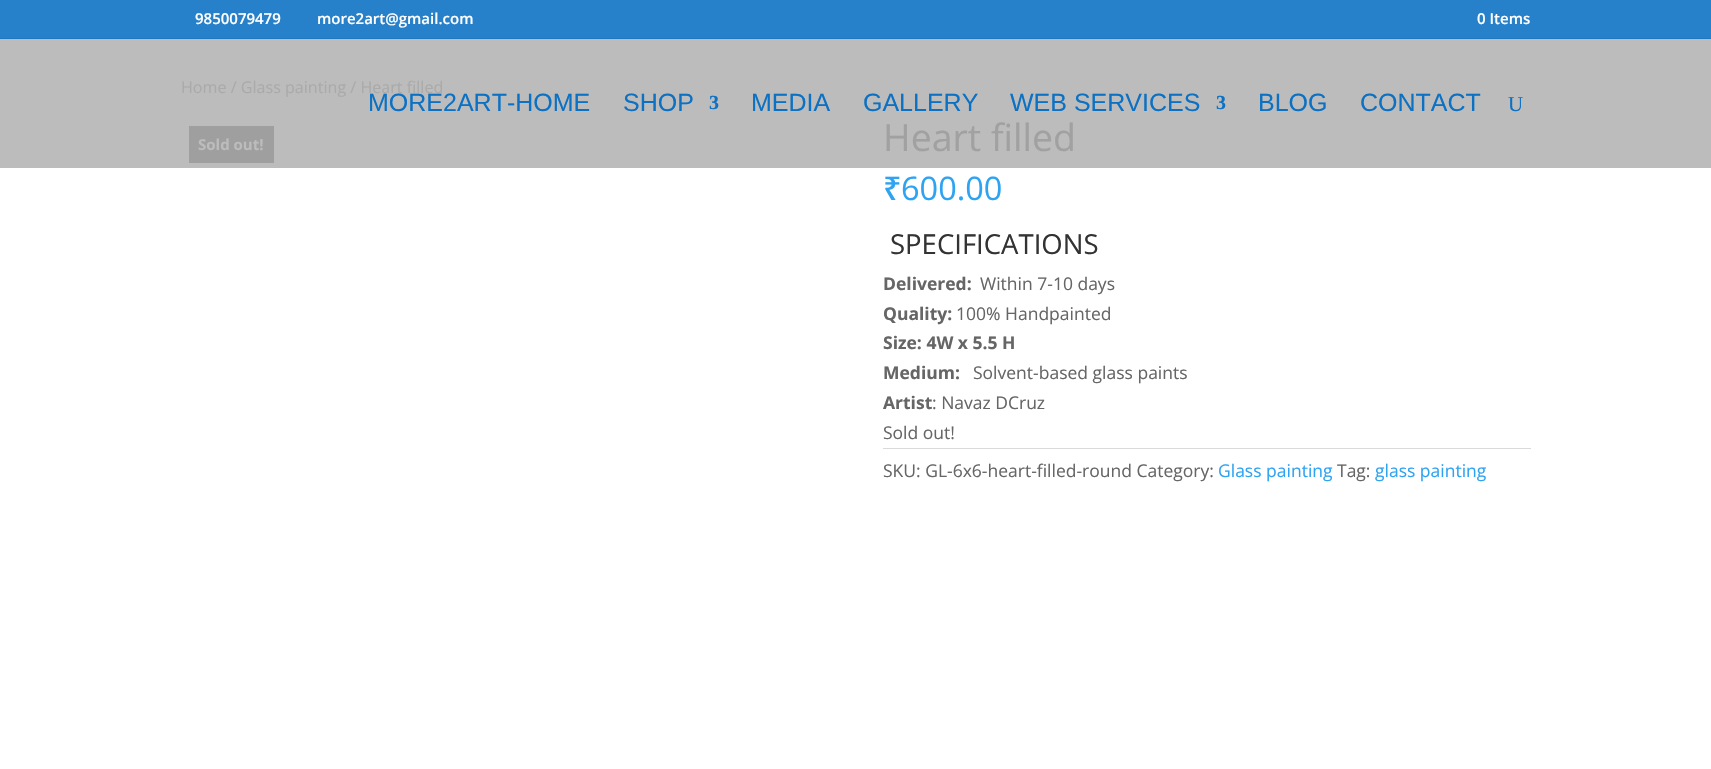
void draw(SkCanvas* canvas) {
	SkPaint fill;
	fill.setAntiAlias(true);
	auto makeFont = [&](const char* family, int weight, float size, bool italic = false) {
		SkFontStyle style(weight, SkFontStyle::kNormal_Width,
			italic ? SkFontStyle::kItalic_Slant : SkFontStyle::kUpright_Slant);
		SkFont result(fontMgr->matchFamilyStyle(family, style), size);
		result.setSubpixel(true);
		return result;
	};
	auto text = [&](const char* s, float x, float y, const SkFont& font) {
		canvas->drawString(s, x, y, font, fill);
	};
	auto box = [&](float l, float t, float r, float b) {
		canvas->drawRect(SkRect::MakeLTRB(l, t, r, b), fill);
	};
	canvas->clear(0xFFFFFFFF);
	fill.setColor(0xFF2781CA);
	box(0, 0, 1711, 38);
	fill.setColor(0xFFBCBCBC);
	box(0, 39, 1711, 168);
	fill.setColor(0xFF1F79C2);
	box(0, 38, 1711, 39);
	fill.setColor(0xFF9F9F9F);
	box(189, 126, 274, 163);
	fill.setColor(0xFFDADADA);
	box(883, 448, 1531, 449);
	auto font1 = makeFont("Open Sans", 600, 15);
	fill.setColor(0xFFFFFFFF);
	text("9850079479", 195, 24, font1);
	text("more2art@gmail.com", 317, 24, font1);
	text("0 Items", 1477, 24, font1);
	auto font2 = makeFont("Open Sans", 400, 16.1f);
	fill.setColor(0xFFAAAAAA);
	text("Home / Glass painting / Heart filled", 181, 93, font2);
	auto font3 = makeFont("Open Sans", 700, 15);
	fill.setColor(0xFFBCBCBC);
	text("Sold out!", 198, 150, font3);
	auto font4 = makeFont("Open Sans", 400, 37.5f);
	fill.setColor(0xFFA1A1A1);
	text("Heart filled", 883, 151, font4);
	auto font5 = makeFont("Noto Sans", 500, 32.5f);
	fill.setColor(0xFF2EA3F2);
	text("₹", 883, 200, font5);
	auto font6 = makeFont("Open Sans", 400, 32.5f);
	text("600.00", 901, 200, font6);
	auto font7 = makeFont("Open Sans", 400, 27.5f);
	fill.setColor(0xFF333333);
	text("SPECIFICATIONS", 890, 254, font7);
	auto font8 = makeFont("Open Sans", 700, 17.5f);
	fill.setColor(0xFF666666);
	text("Delivered:", 883, 290, font8);
	auto font9 = makeFont("Open Sans", 400, 17.5f);
	text("Within 7-10 days", 980, 290, font9);
	text("Quality:", 883, 320, font8);
	text("100% Handpainted", 956, 320, font9);
	text("Size: 4W x 5.5 H", 883, 349, font8);
	text("Medium:", 883, 379, font8);
	text("Solvent-based glass paints", 973, 379, font9);
	text("Artist", 883, 409, font8);
	text(": Navaz DCruz", 932, 409, font9);
	text("Sold out!", 883, 439, font9);
	text("SKU: GL-6x6-heart-filled-round Category:", 883, 477, font9);
	fill.setColor(0xFF2EA3F2);
	text("Glass painting", 1218, 477, font9);
	fill.setColor(0xFF666666);
	text("Tag:", 1337, 477, font9);
	fill.setColor(0xFF2EA3F2);
	text("glass painting", 1375, 477, font9);
	auto font10 = makeFont("Liberation Sans", 400, 25);
	fill.setColor(0xFF0C71C3);
	text("MORE2ART-HOME", 368, 111, font10);
	text("SHOP", 623, 111, font10);
	auto font11 = makeFont("Liberation Serif", 700, 20);
	text("3", 709, 109, font11);
	text("MEDIA", 751, 111, font10);
	text("GALLERY", 863, 111, font10);
	text("WEB SERVICES", 1010, 111, font10);
	text("3", 1216, 109, font11);
	text("BLOG", 1258, 111, font10);
	text("CONTACT", 1360, 111, font10);
	auto font12 = makeFont("Liberation Serif", 400, 21);
	text("U", 1508, 111, font12);
}
